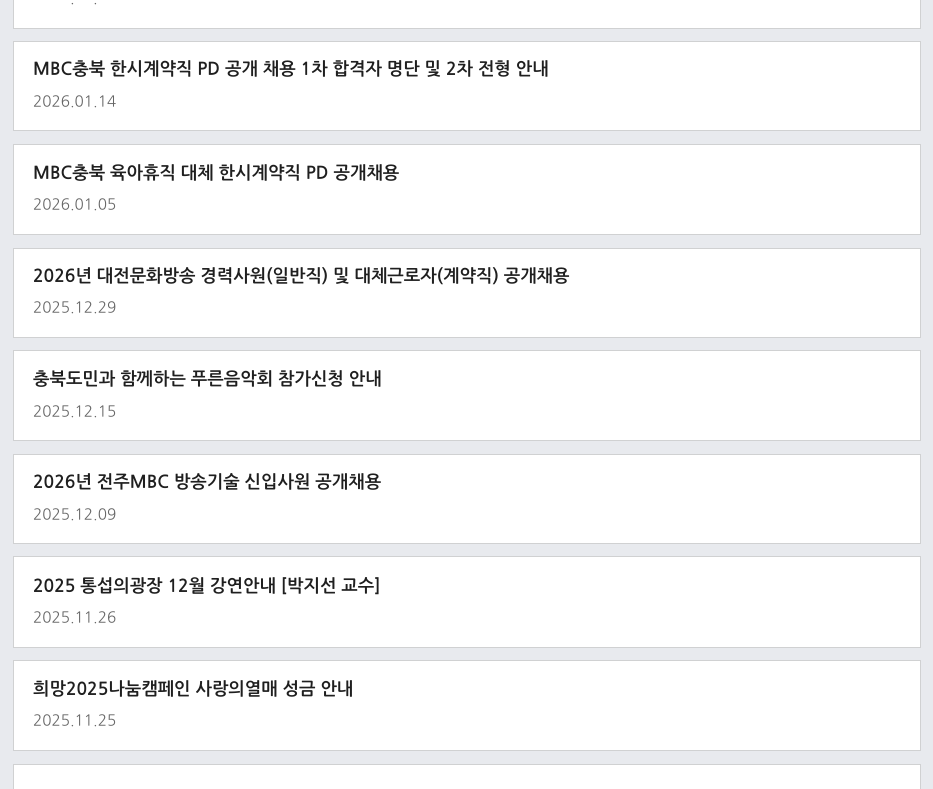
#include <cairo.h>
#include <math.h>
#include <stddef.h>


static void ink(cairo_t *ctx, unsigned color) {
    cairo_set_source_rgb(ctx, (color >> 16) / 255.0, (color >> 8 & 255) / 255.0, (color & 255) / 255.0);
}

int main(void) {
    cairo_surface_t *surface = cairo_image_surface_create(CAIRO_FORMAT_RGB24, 933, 789);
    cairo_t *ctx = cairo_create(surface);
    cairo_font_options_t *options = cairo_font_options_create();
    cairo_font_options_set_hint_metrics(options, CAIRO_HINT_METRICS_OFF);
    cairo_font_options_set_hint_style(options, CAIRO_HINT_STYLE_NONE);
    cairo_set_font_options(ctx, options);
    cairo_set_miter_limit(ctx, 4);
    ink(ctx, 0xE8EAEE);
    cairo_paint(ctx);
    ink(ctx, 0xFFFFFF);
    cairo_rectangle(ctx, 13.5, -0.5, 907, 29);
    cairo_fill_preserve(ctx);
    ink(ctx, 0xD0D1D2);
    cairo_set_line_width(ctx, 1);
    cairo_stroke(ctx);
    cairo_select_font_face(ctx, "NanumGothic", CAIRO_FONT_SLANT_NORMAL, CAIRO_FONT_WEIGHT_NORMAL);
    cairo_set_font_size(ctx, 15.25);
    ink(ctx, 0x666666);
    cairo_move_to(ctx, 70, 3);
    cairo_show_text(ctx, ".");
    cairo_move_to(ctx, 93, 3);
    cairo_show_text(ctx, ".");
    ink(ctx, 0xFFFFFF);
    cairo_rectangle(ctx, 13.5, 41.5, 907, 89);
    cairo_fill_preserve(ctx);
    ink(ctx, 0xD0D1D2);
    cairo_stroke(ctx);
    cairo_select_font_face(ctx, "NanumGothic", CAIRO_FONT_SLANT_NORMAL, CAIRO_FONT_WEIGHT_BOLD);
    cairo_set_font_size(ctx, 17.5);
    ink(ctx, 0x1F1F1F);
    cairo_move_to(ctx, 33, 74);
    cairo_show_text(ctx, "MBC충북 한시계약직 PD 공개 채용 1차 합격자 명단 및 2차 전형 안내");
    cairo_select_font_face(ctx, "NanumGothic", CAIRO_FONT_SLANT_NORMAL, CAIRO_FONT_WEIGHT_NORMAL);
    cairo_set_font_size(ctx, 15.25);
    ink(ctx, 0x666666);
    cairo_move_to(ctx, 33, 106);
    cairo_show_text(ctx, "2026.01.14");
    ink(ctx, 0xFFFFFF);
    cairo_rectangle(ctx, 13.5, 144.5, 907, 90);
    cairo_fill_preserve(ctx);
    ink(ctx, 0xD0D1D2);
    cairo_stroke(ctx);
    cairo_select_font_face(ctx, "NanumGothic", CAIRO_FONT_SLANT_NORMAL, CAIRO_FONT_WEIGHT_BOLD);
    cairo_set_font_size(ctx, 17.5);
    ink(ctx, 0x1F1F1F);
    cairo_move_to(ctx, 33, 178);
    cairo_show_text(ctx, "MBC충북 육아휴직 대체 한시계약직 PD 공개채용");
    cairo_select_font_face(ctx, "NanumGothic", CAIRO_FONT_SLANT_NORMAL, CAIRO_FONT_WEIGHT_NORMAL);
    cairo_set_font_size(ctx, 15.25);
    ink(ctx, 0x666666);
    cairo_move_to(ctx, 33, 209);
    cairo_show_text(ctx, "2026.01.05");
    ink(ctx, 0xFFFFFF);
    cairo_rectangle(ctx, 13.5, 248.5, 907, 89);
    cairo_fill_preserve(ctx);
    ink(ctx, 0xD0D1D2);
    cairo_stroke(ctx);
    cairo_select_font_face(ctx, "NanumGothic", CAIRO_FONT_SLANT_NORMAL, CAIRO_FONT_WEIGHT_BOLD);
    cairo_set_font_size(ctx, 17.5);
    ink(ctx, 0x1F1F1F);
    cairo_move_to(ctx, 33, 281);
    cairo_show_text(ctx, "2026년 대전문화방송 경력사원(일반직) 및 대체근로자(계약직) 공개채용");
    cairo_select_font_face(ctx, "NanumGothic", CAIRO_FONT_SLANT_NORMAL, CAIRO_FONT_WEIGHT_NORMAL);
    cairo_set_font_size(ctx, 15.25);
    ink(ctx, 0x666666);
    cairo_move_to(ctx, 33, 312);
    cairo_show_text(ctx, "2025.12.29");
    ink(ctx, 0xFFFFFF);
    cairo_rectangle(ctx, 13.5, 350.5, 907, 90);
    cairo_fill_preserve(ctx);
    ink(ctx, 0xD0D1D2);
    cairo_stroke(ctx);
    cairo_select_font_face(ctx, "NanumGothic", CAIRO_FONT_SLANT_NORMAL, CAIRO_FONT_WEIGHT_BOLD);
    cairo_set_font_size(ctx, 17.5);
    ink(ctx, 0x1F1F1F);
    cairo_move_to(ctx, 33, 384);
    cairo_show_text(ctx, "충북도민과 함께하는 푸른음악회 참가신청 안내");
    cairo_select_font_face(ctx, "NanumGothic", CAIRO_FONT_SLANT_NORMAL, CAIRO_FONT_WEIGHT_NORMAL);
    cairo_set_font_size(ctx, 15.25);
    ink(ctx, 0x666666);
    cairo_move_to(ctx, 33, 416);
    cairo_show_text(ctx, "2025.12.15");
    ink(ctx, 0xFFFFFF);
    cairo_rectangle(ctx, 13.5, 454.5, 907, 89);
    cairo_fill_preserve(ctx);
    ink(ctx, 0xD0D1D2);
    cairo_stroke(ctx);
    cairo_select_font_face(ctx, "NanumGothic", CAIRO_FONT_SLANT_NORMAL, CAIRO_FONT_WEIGHT_BOLD);
    cairo_set_font_size(ctx, 17.5);
    ink(ctx, 0x1F1F1F);
    cairo_move_to(ctx, 33, 487);
    cairo_show_text(ctx, "2026년 전주MBC 방송기술 신입사원 공개채용");
    cairo_select_font_face(ctx, "NanumGothic", CAIRO_FONT_SLANT_NORMAL, CAIRO_FONT_WEIGHT_NORMAL);
    cairo_set_font_size(ctx, 15.25);
    ink(ctx, 0x666666);
    cairo_move_to(ctx, 33, 519);
    cairo_show_text(ctx, "2025.12.09");
    ink(ctx, 0xFFFFFF);
    cairo_rectangle(ctx, 13.5, 556.5, 907, 91);
    cairo_fill_preserve(ctx);
    ink(ctx, 0xD0D1D2);
    cairo_stroke(ctx);
    cairo_select_font_face(ctx, "NanumGothic", CAIRO_FONT_SLANT_NORMAL, CAIRO_FONT_WEIGHT_BOLD);
    cairo_set_font_size(ctx, 17.5);
    ink(ctx, 0x1F1F1F);
    cairo_move_to(ctx, 33, 591);
    cairo_show_text(ctx, "2025 통섭의광장 12월 강연안내 [박지선 교수]");
    cairo_select_font_face(ctx, "NanumGothic", CAIRO_FONT_SLANT_NORMAL, CAIRO_FONT_WEIGHT_NORMAL);
    cairo_set_font_size(ctx, 15.25);
    ink(ctx, 0x666666);
    cairo_move_to(ctx, 33, 622);
    cairo_show_text(ctx, "2025.11.26");
    ink(ctx, 0xFFFFFF);
    cairo_rectangle(ctx, 13.5, 660.5, 907, 90);
    cairo_fill_preserve(ctx);
    ink(ctx, 0xD0D1D2);
    cairo_stroke(ctx);
    cairo_select_font_face(ctx, "NanumGothic", CAIRO_FONT_SLANT_NORMAL, CAIRO_FONT_WEIGHT_BOLD);
    cairo_set_font_size(ctx, 17.5);
    ink(ctx, 0x1F1F1F);
    cairo_move_to(ctx, 33, 694);
    cairo_show_text(ctx, "희망2025나눔캠페인 사랑의열매 성금 안내");
    cairo_select_font_face(ctx, "NanumGothic", CAIRO_FONT_SLANT_NORMAL, CAIRO_FONT_WEIGHT_NORMAL);
    cairo_set_font_size(ctx, 15.25);
    ink(ctx, 0x666666);
    cairo_move_to(ctx, 33, 725);
    cairo_show_text(ctx, "2025.11.25");
    ink(ctx, 0xFFFFFF);
    cairo_rectangle(ctx, 13.5, 764.5, 907, 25);
    cairo_fill_preserve(ctx);
    ink(ctx, 0xD0D1D2);
    cairo_stroke(ctx);
    cairo_surface_write_to_png(surface, "image.png");
    cairo_font_options_destroy(options);
    cairo_destroy(ctx);
    cairo_surface_destroy(surface);
    return 0;
}
